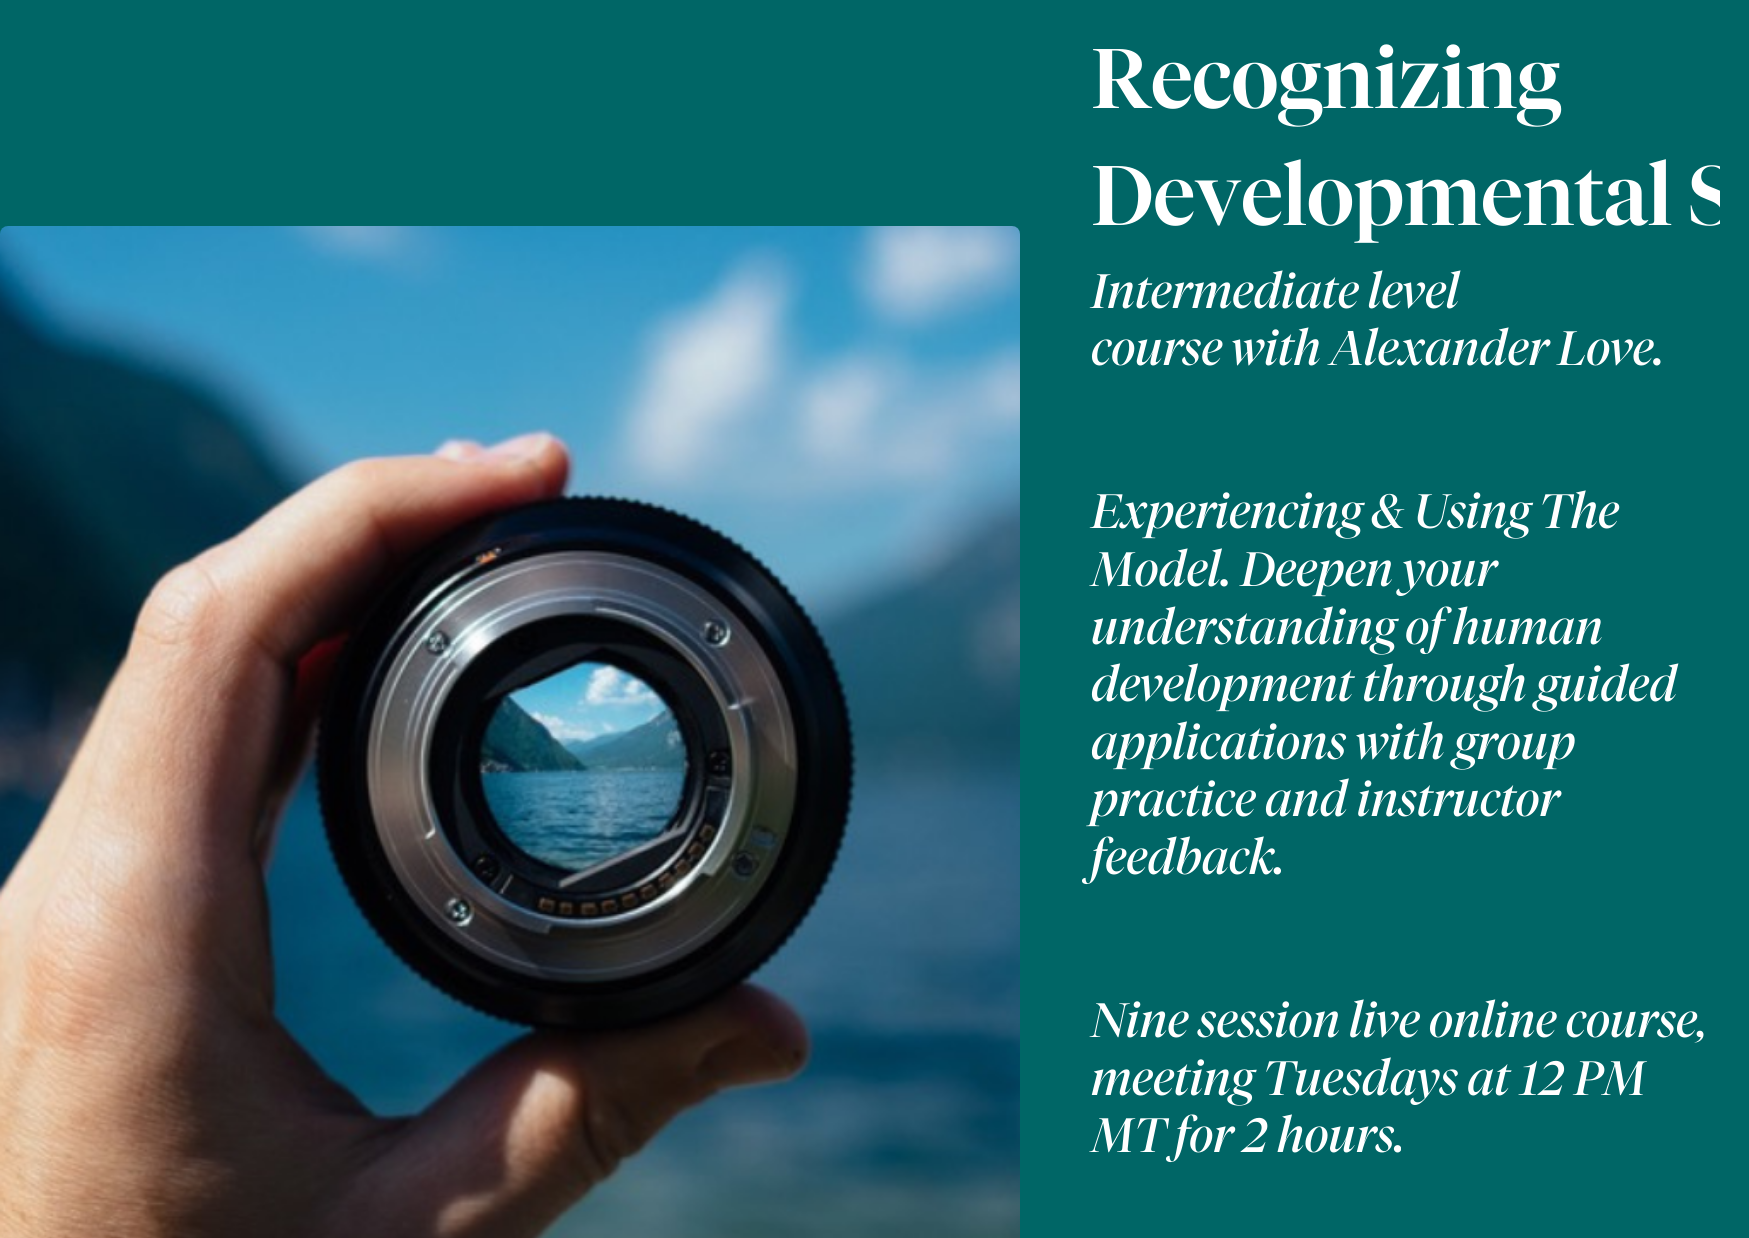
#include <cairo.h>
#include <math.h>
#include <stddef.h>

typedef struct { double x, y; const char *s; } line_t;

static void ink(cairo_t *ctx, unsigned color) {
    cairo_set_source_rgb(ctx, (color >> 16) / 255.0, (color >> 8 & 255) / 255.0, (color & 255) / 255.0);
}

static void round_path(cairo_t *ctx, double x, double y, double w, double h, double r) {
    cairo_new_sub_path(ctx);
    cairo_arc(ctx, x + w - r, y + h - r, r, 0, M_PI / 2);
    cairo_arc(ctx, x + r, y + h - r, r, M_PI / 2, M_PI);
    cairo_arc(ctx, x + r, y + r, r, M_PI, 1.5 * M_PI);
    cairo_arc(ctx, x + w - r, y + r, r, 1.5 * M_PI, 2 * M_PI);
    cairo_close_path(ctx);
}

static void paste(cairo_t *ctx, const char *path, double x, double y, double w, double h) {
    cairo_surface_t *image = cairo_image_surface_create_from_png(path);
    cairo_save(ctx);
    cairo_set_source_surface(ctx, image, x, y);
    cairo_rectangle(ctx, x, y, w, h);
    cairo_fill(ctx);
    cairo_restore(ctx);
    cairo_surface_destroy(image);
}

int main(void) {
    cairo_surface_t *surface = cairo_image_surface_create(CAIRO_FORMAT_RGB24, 1749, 1238);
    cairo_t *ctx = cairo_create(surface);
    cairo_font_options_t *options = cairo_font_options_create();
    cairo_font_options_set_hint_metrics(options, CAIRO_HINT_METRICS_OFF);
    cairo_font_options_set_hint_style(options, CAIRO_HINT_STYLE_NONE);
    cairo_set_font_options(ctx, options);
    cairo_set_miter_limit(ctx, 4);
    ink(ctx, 0x006666);
    cairo_paint(ctx);
    paste(ctx, "media/1.png", 0, 226, 1020, 1012);
    cairo_select_font_face(ctx, "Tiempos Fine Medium", CAIRO_FONT_SLANT_NORMAL, CAIRO_FONT_WEIGHT_NORMAL);
    cairo_set_font_size(ctx, 84);
    ink(ctx, 0xFFFFFF);
    cairo_move_to(ctx, 1091, 108);
    cairo_show_text(ctx, "Recognizing");
    cairo_save(ctx);
    round_path(ctx, 1050, 30, 670, 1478, 8);
    cairo_clip(ctx);
    cairo_move_to(ctx, 1091, 225);
    cairo_show_text(ctx, "Developmental S");
    cairo_restore(ctx);
    cairo_select_font_face(ctx, "Tiempos Fine", CAIRO_FONT_SLANT_ITALIC, CAIRO_FONT_WEIGHT_NORMAL);
    cairo_set_font_size(ctx, 48);
    {
        static const line_t items[] = {
            {1091, 308, "Intermediate level"},
            {1091, 365, "course with Alexander Love."},
            {1091, 528, "Experiencing & Using The"},
            {1091, 586, "Model. Deepen your"},
            {1091, 644, "understanding of human"},
            {1091, 701, "development through guided"},
            {1091, 759, "applications with group"},
            {1091, 816, "practice and instructor"},
            {1091, 874, "feedback."},
            {1091, 1037, "Nine session live online course,"},
            {1091, 1095, "meeting Tuesdays at 12 PM"},
            {1091, 1152, "MT for 2 hours."},
        };
        for (size_t i = 0; i < sizeof items / sizeof *items; i++) {
            cairo_move_to(ctx, items[i].x, items[i].y);
            cairo_show_text(ctx, items[i].s);
        }
    }
    cairo_surface_write_to_png(surface, "image.png");
    cairo_font_options_destroy(options);
    cairo_destroy(ctx);
    cairo_surface_destroy(surface);
    return 0;
}
